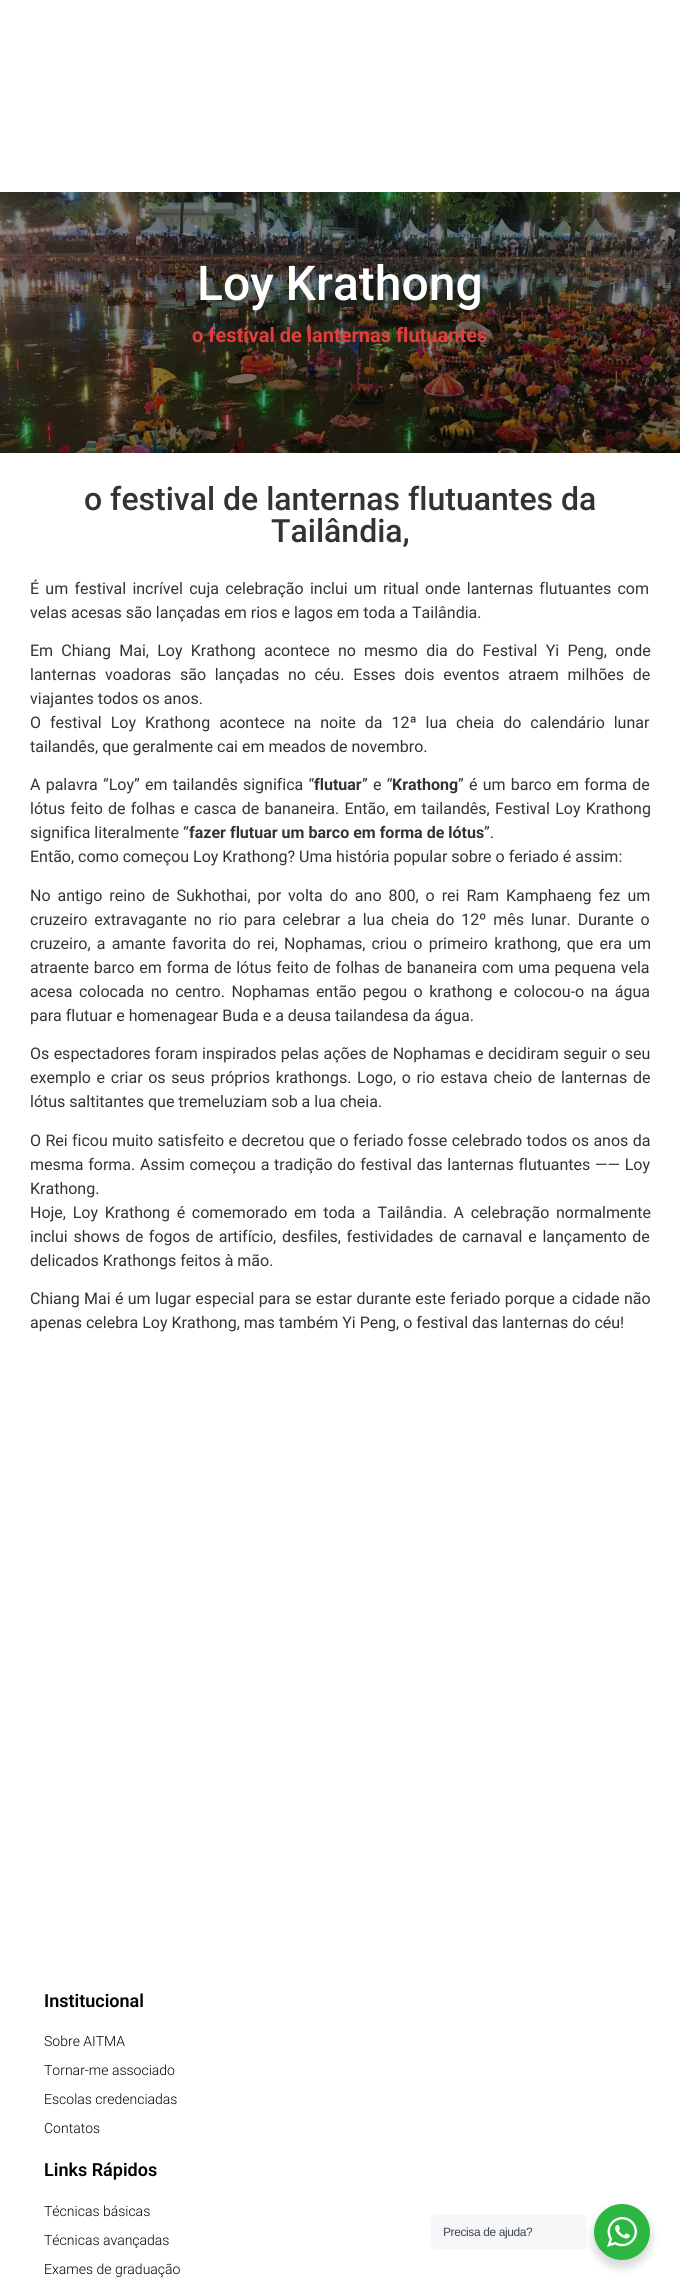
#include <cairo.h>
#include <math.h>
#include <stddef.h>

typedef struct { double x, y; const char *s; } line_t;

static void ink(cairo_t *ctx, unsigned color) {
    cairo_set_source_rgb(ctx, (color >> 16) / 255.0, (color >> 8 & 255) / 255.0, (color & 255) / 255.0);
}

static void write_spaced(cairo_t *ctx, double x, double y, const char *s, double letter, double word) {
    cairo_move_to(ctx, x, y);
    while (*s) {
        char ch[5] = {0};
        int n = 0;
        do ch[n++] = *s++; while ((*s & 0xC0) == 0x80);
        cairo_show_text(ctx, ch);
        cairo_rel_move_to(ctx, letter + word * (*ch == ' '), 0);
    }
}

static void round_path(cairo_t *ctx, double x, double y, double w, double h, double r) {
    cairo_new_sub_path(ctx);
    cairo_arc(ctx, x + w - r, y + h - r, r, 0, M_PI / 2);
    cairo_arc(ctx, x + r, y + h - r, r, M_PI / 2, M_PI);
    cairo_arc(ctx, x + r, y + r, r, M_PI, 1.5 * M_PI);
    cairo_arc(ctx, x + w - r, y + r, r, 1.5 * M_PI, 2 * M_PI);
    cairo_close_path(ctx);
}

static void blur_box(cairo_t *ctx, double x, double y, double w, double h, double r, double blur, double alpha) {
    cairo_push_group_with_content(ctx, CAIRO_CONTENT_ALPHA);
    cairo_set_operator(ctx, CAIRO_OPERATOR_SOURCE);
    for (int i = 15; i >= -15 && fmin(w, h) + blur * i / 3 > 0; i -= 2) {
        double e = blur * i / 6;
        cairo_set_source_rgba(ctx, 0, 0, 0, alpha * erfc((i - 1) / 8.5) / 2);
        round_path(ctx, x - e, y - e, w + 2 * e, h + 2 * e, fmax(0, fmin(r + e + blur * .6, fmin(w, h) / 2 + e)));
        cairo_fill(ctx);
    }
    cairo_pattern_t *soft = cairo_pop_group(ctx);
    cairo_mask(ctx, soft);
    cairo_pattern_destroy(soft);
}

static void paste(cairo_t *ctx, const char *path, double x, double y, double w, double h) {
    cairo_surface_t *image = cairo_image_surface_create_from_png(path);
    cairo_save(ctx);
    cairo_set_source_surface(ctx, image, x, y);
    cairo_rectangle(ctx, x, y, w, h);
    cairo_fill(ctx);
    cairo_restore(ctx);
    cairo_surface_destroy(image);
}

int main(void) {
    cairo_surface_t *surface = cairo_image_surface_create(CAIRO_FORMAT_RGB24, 680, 2290);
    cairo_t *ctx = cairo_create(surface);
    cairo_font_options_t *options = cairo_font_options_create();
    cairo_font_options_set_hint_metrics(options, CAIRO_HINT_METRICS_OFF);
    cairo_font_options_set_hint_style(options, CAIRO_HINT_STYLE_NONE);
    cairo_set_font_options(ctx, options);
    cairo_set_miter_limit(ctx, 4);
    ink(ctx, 0xFFFFFF);
    cairo_paint(ctx);
    paste(ctx, "media/1.png", 0, 192, 680, 261);
    cairo_select_font_face(ctx, "Roboto Medium", CAIRO_FONT_SLANT_NORMAL, CAIRO_FONT_WEIGHT_NORMAL);
    cairo_set_font_size(ctx, 48);
    ink(ctx, 0xFFFFFF);
    cairo_move_to(ctx, 197, 300);
    cairo_show_text(ctx, "Loy Krathong");
    cairo_select_font_face(ctx, "Roboto", CAIRO_FONT_SLANT_NORMAL, CAIRO_FONT_WEIGHT_BOLD);
    cairo_set_font_size(ctx, 20);
    ink(ctx, 0xE33D3D);
    cairo_move_to(ctx, 192, 342);
    cairo_show_text(ctx, "o festival de lanternas flutuantes");
    cairo_select_font_face(ctx, "Roboto Medium", CAIRO_FONT_SLANT_NORMAL, CAIRO_FONT_WEIGHT_NORMAL);
    cairo_set_font_size(ctx, 32);
    ink(ctx, 0x333333);
    cairo_move_to(ctx, 84, 510);
    cairo_show_text(ctx, "o festival de lanternas flutuantes da");
    cairo_move_to(ctx, 271, 542);
    cairo_show_text(ctx, "Tailândia,");
    cairo_select_font_face(ctx, "Roboto", CAIRO_FONT_SLANT_NORMAL, CAIRO_FONT_WEIGHT_NORMAL);
    cairo_set_font_size(ctx, 16);
    write_spaced(ctx, 30, 594, "É um festival incrível cuja celebração inclui um ritual onde lanternas flutuantes com", 0, 2.25);
    cairo_move_to(ctx, 30, 618);
    cairo_show_text(ctx, "velas acesas são lançadas em rios e lagos em toda a Tailândia.");
    write_spaced(ctx, 30, 656, "Em Chiang Mai, Loy Krathong acontece no mesmo dia do Festival Yi Peng, onde", 0, 4.25);
    write_spaced(ctx, 30, 680, "lanternas voadoras são lançadas no céu. Esses dois eventos atraem milhões de", 0, 4.75);
    cairo_move_to(ctx, 30, 704);
    cairo_show_text(ctx, "viajantes todos os anos.");
    write_spaced(ctx, 30, 728, "O festival Loy Krathong acontece na noite da 12ª lua cheia do calendário lunar", 0, 5);
    cairo_move_to(ctx, 30, 752);
    cairo_show_text(ctx, "tailandês, que geralmente cai em meados de novembro.");
    write_spaced(ctx, 30, 790, "A palavra “Loy” em tailandês significa “", 0, 1.25);
    cairo_select_font_face(ctx, "Roboto", CAIRO_FONT_SLANT_NORMAL, CAIRO_FONT_WEIGHT_BOLD);
    cairo_move_to(ctx, 314, 790);
    cairo_show_text(ctx, "flutuar");
    cairo_select_font_face(ctx, "Roboto", CAIRO_FONT_SLANT_NORMAL, CAIRO_FONT_WEIGHT_NORMAL);
    write_spaced(ctx, 362, 790, "” e “", 0, 1.25);
    cairo_select_font_face(ctx, "Roboto", CAIRO_FONT_SLANT_NORMAL, CAIRO_FONT_WEIGHT_BOLD);
    cairo_move_to(ctx, 392, 790);
    cairo_show_text(ctx, "Krathong");
    cairo_select_font_face(ctx, "Roboto", CAIRO_FONT_SLANT_NORMAL, CAIRO_FONT_WEIGHT_NORMAL);
    write_spaced(ctx, 458, 790, "” é um barco em forma de", 0, 1.25);
    write_spaced(ctx, 30, 814, "lótus feito de folhas e casca de bananeira. Então, em tailandês, Festival Loy Krathong", 0, 1.25);
    cairo_move_to(ctx, 30, 838);
    cairo_show_text(ctx, "significa literalmente “");
    cairo_select_font_face(ctx, "Roboto", CAIRO_FONT_SLANT_NORMAL, CAIRO_FONT_WEIGHT_BOLD);
    cairo_move_to(ctx, 189, 838);
    cairo_show_text(ctx, "fazer flutuar um barco em forma de lótus");
    cairo_select_font_face(ctx, "Roboto", CAIRO_FONT_SLANT_NORMAL, CAIRO_FONT_WEIGHT_NORMAL);
    cairo_move_to(ctx, 484, 838);
    cairo_show_text(ctx, "”.");
    cairo_move_to(ctx, 30, 862);
    cairo_show_text(ctx, "Então, como começou Loy Krathong? Uma história popular sobre o feriado é assim:");
    write_spaced(ctx, 30, 901, "No antigo reino de Sukhothai, por volta do ano 800, o rei Ram Kamphaeng fez um", 0, 3);
    write_spaced(ctx, 30, 925, "cruzeiro extravagante no rio para celebrar a lua cheia do 12º mês lunar. Durante o", 0, 2.9);
    write_spaced(ctx, 30, 949, "cruzeiro, a amante favorita do rei, Nophamas, criou o primeiro krathong, que era um", 0, 2.25);
    write_spaced(ctx, 30, 973, "atraente barco em forma de lótus feito de folhas de bananeira com uma pequena vela", 0, 0.75);
    write_spaced(ctx, 30, 997, "acesa colocada no centro. Nophamas então pegou o krathong e colocou-o na água", 0, 2.5);
    cairo_move_to(ctx, 30, 1021);
    cairo_show_text(ctx, "para flutuar e homenagear Buda e a deusa tailandesa da água.");
    write_spaced(ctx, 30, 1059, "Os espectadores foram inspirados pelas ações de Nophamas e decidiram seguir o seu", 0, 0.4);
    write_spaced(ctx, 30, 1083, "exemplo e criar os seus próprios krathongs. Logo, o rio estava cheio de lanternas de", 0, 1.7);
    cairo_move_to(ctx, 30, 1107);
    cairo_show_text(ctx, "lótus saltitantes que tremeluziam sob a lua cheia.");
    write_spaced(ctx, 30, 1146, "O Rei ficou muito satisfeito e decretou que o feriado fosse celebrado todos os anos da", 0, 0.4);
    write_spaced(ctx, 30, 1170, "mesma forma. Assim começou a tradição do festival das lanternas flutuantes —— Loy", 0, 0.75);
    cairo_move_to(ctx, 30, 1194);
    cairo_show_text(ctx, "Krathong.");
    write_spaced(ctx, 30, 1218, "Hoje, Loy Krathong é comemorado em toda a Tailândia. A celebração normalmente", 0, 2.75);
    write_spaced(ctx, 30, 1242, "inclui shows de fogos de artifício, desfiles, festividades de carnaval e lançamento de", 0, 1.75);
    cairo_move_to(ctx, 30, 1266);
    cairo_show_text(ctx, "delicados Krathongs feitos à mão.");
    write_spaced(ctx, 30, 1304, "Chiang Mai é um lugar especial para se estar durante este feriado porque a cidade não", 0, 0.4);
    cairo_move_to(ctx, 30, 1328);
    cairo_show_text(ctx, "apenas celebra Loy Krathong, mas também Yi Peng, o festival das lanternas do céu!");
    cairo_select_font_face(ctx, "Roboto SemiBold", CAIRO_FONT_SLANT_NORMAL, CAIRO_FONT_WEIGHT_NORMAL);
    cairo_set_font_size(ctx, 18);
    ink(ctx, 0x000000);
    cairo_move_to(ctx, 44, 2007);
    cairo_show_text(ctx, "Institucional");
    cairo_select_font_face(ctx, "Roboto Light", CAIRO_FONT_SLANT_NORMAL, CAIRO_FONT_WEIGHT_NORMAL);
    cairo_set_font_size(ctx, 14);
    {
        static const line_t items[] = {
            {44, 2046, "Sobre AITMA"},
            {44, 2075, "Tornar-me associado"},
            {44, 2104, "Escolas credenciadas"},
            {44, 2133, "Contatos"},
        };
        for (size_t i = 0; i < sizeof items / sizeof *items; i++) {
            cairo_move_to(ctx, items[i].x, items[i].y);
            cairo_show_text(ctx, items[i].s);
        }
    }
    cairo_select_font_face(ctx, "Roboto SemiBold", CAIRO_FONT_SLANT_NORMAL, CAIRO_FONT_WEIGHT_NORMAL);
    cairo_set_font_size(ctx, 18);
    cairo_move_to(ctx, 44, 2176);
    cairo_show_text(ctx, "Links Rápidos");
    cairo_select_font_face(ctx, "Roboto Light", CAIRO_FONT_SLANT_NORMAL, CAIRO_FONT_WEIGHT_NORMAL);
    cairo_set_font_size(ctx, 14);
    {
        static const line_t items[] = {
            {44, 2216, "Técnicas básicas"},
            {44, 2245, "Técnicas avançadas"},
            {44, 2274, "Exames de graduação"},
        };
        for (size_t i = 0; i < sizeof items / sizeof *items; i++) {
            cairo_move_to(ctx, items[i].x, items[i].y);
            cairo_show_text(ctx, items[i].s);
        }
    }
    ink(ctx, 0x000000);
    blur_box(ctx, 592, 2208, 60, 60, 30, 4, 0.14);
    ink(ctx, 0xF5F7F9);
    round_path(ctx, 431, 2215, 156, 34, 4);
    cairo_fill(ctx);
    cairo_select_font_face(ctx, "Liberation Sans", CAIRO_FONT_SLANT_NORMAL, CAIRO_FONT_WEIGHT_NORMAL);
    cairo_set_font_size(ctx, 12);
    ink(ctx, 0x43474E);
    write_spaced(ctx, 443, 2236, "Precisa de ajuda?", -0.4, 0);
    ink(ctx, 0x2DB742);
    cairo_new_path(ctx);
    cairo_arc(ctx, 622, 2232, 28, 0, 2 * M_PI);
    cairo_fill(ctx);
    paste(ctx, "media/2.png", 607, 2217, 30, 30);
    cairo_surface_write_to_png(surface, "image.png");
    cairo_font_options_destroy(options);
    cairo_destroy(ctx);
    cairo_surface_destroy(surface);
    return 0;
}
